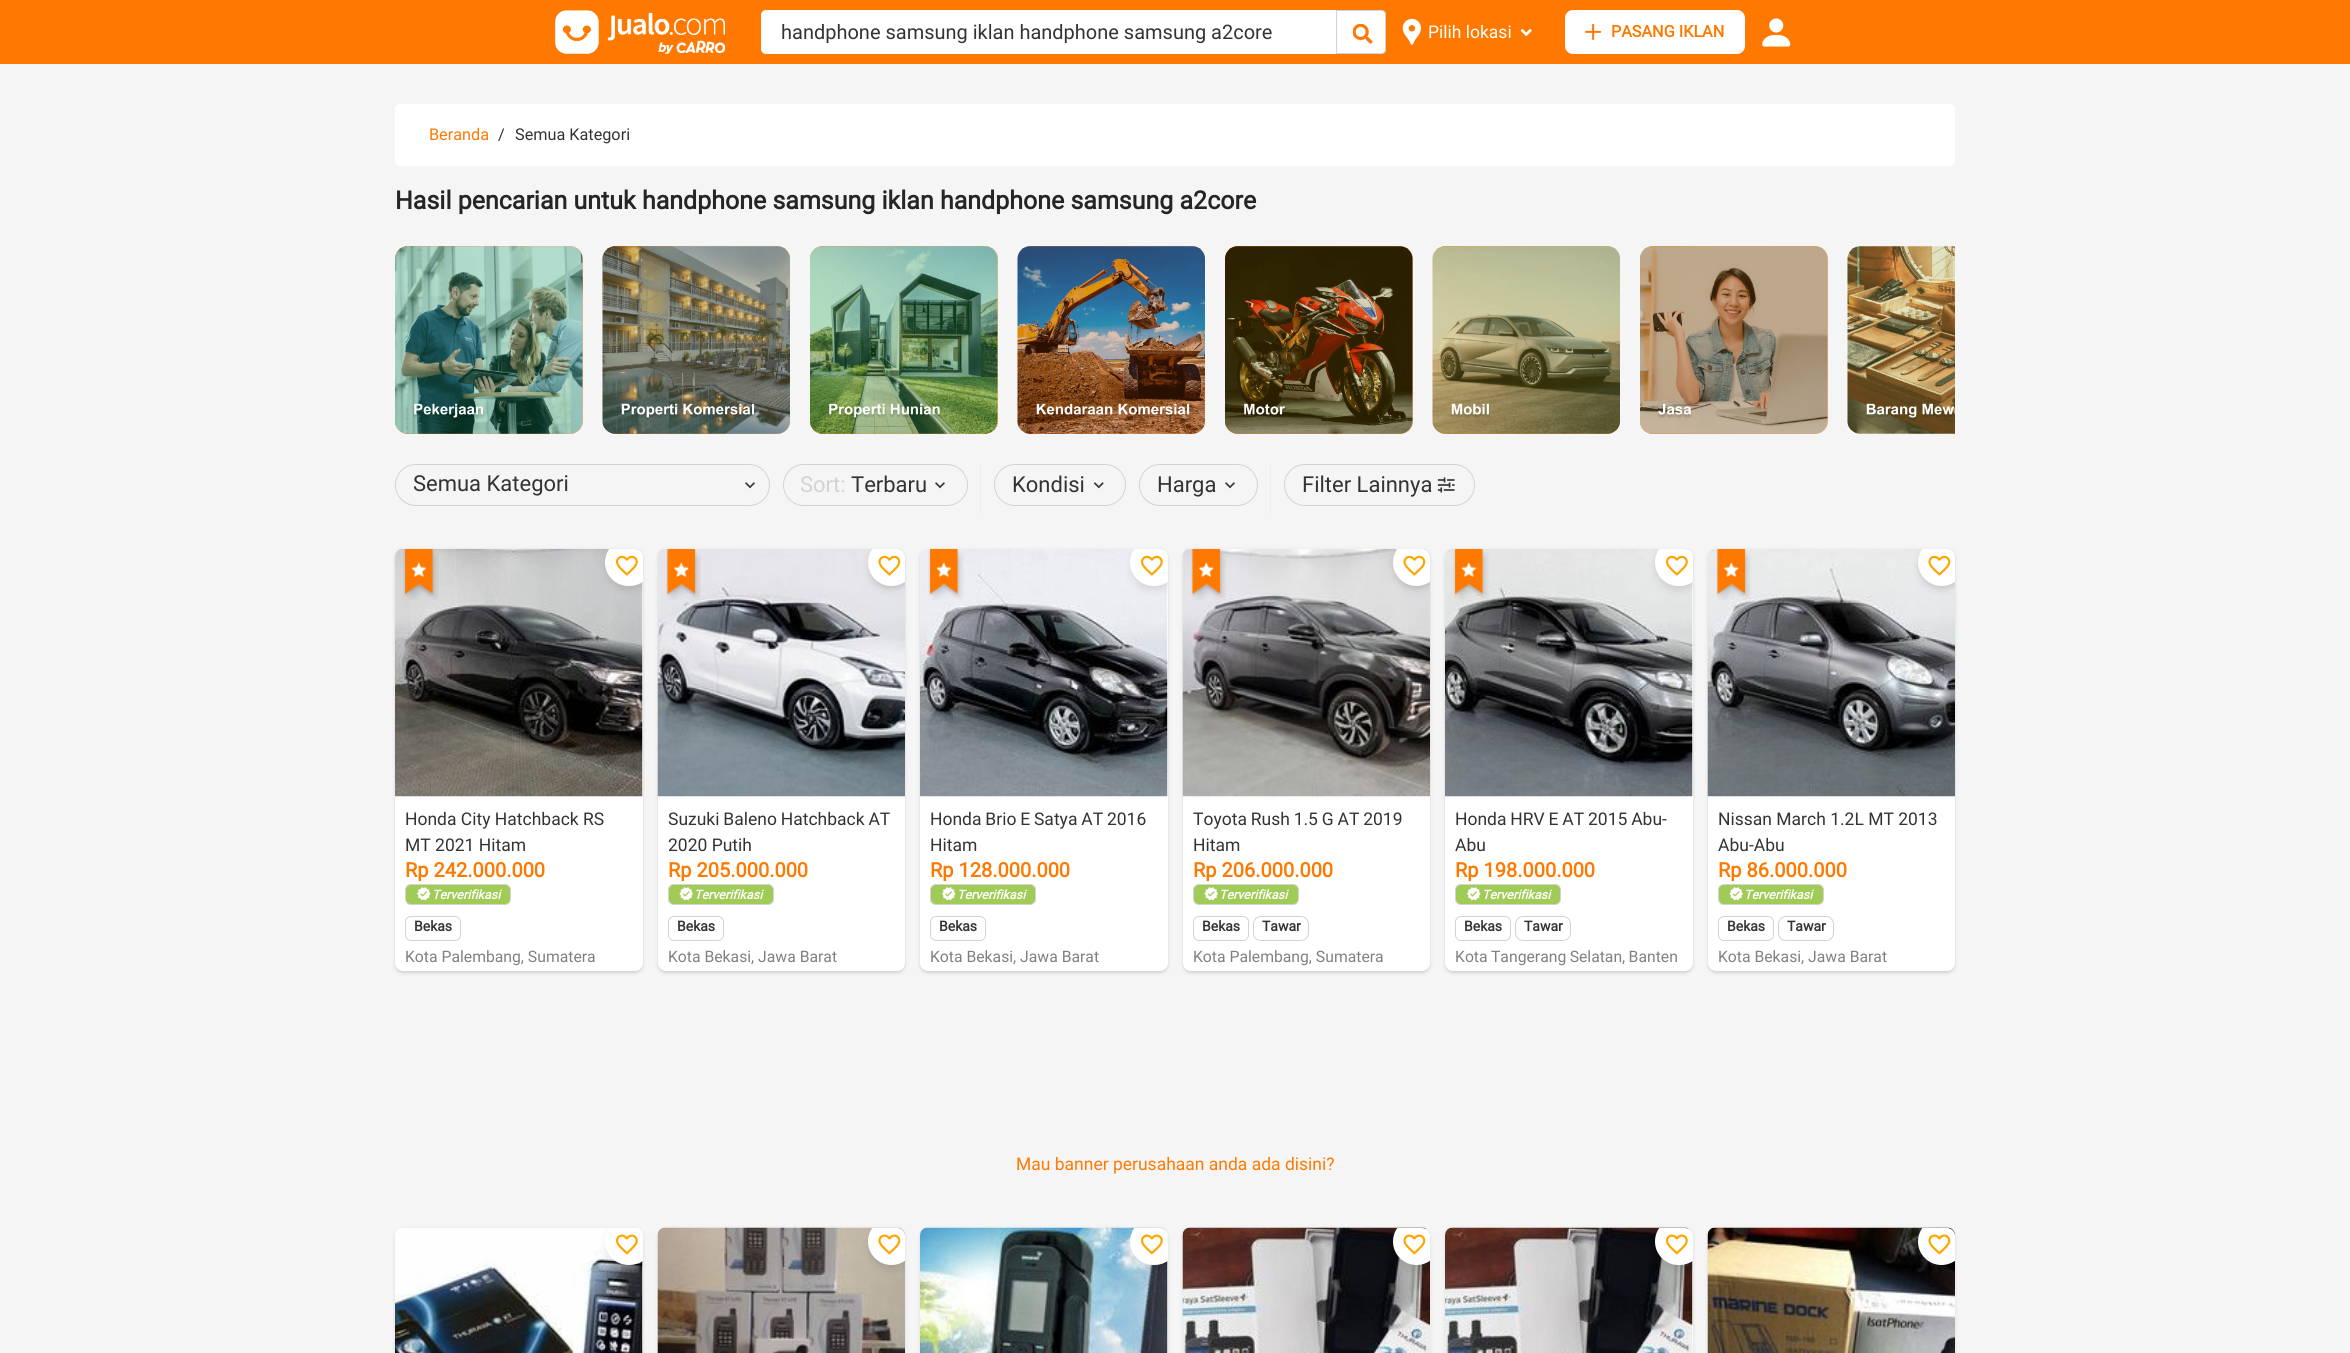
#include <cairo.h>
#include <math.h>
#include <stddef.h>


static void ink(cairo_t *ctx, unsigned color) {
    cairo_set_source_rgb(ctx, (color >> 16) / 255.0, (color >> 8 & 255) / 255.0, (color & 255) / 255.0);
}

static void write_spaced(cairo_t *ctx, double x, double y, const char *s, double letter, double word) {
    cairo_move_to(ctx, x, y);
    while (*s) {
        char ch[5] = {0};
        int n = 0;
        do ch[n++] = *s++; while ((*s & 0xC0) == 0x80);
        cairo_show_text(ctx, ch);
        cairo_rel_move_to(ctx, letter + word * (*ch == ' '), 0);
    }
}

static void round_path(cairo_t *ctx, double x, double y, double w, double h, double r) {
    cairo_new_sub_path(ctx);
    cairo_arc(ctx, x + w - r, y + h - r, r, 0, M_PI / 2);
    cairo_arc(ctx, x + r, y + h - r, r, M_PI / 2, M_PI);
    cairo_arc(ctx, x + r, y + r, r, M_PI, 1.5 * M_PI);
    cairo_arc(ctx, x + w - r, y + r, r, 1.5 * M_PI, 2 * M_PI);
    cairo_close_path(ctx);
}

static void blur_box(cairo_t *ctx, double x, double y, double w, double h, double r, double blur, double alpha) {
    cairo_push_group_with_content(ctx, CAIRO_CONTENT_ALPHA);
    cairo_set_operator(ctx, CAIRO_OPERATOR_SOURCE);
    for (int i = 15; i >= -15 && fmin(w, h) + blur * i / 3 > 0; i -= 2) {
        double e = blur * i / 6;
        cairo_set_source_rgba(ctx, 0, 0, 0, alpha * erfc((i - 1) / 8.5) / 2);
        round_path(ctx, x - e, y - e, w + 2 * e, h + 2 * e, fmax(0, fmin(r + e + blur * .6, fmin(w, h) / 2 + e)));
        cairo_fill(ctx);
    }
    cairo_pattern_t *soft = cairo_pop_group(ctx);
    cairo_mask(ctx, soft);
    cairo_pattern_destroy(soft);
}

static void paste(cairo_t *ctx, const char *path, double x, double y, double w, double h) {
    cairo_surface_t *image = cairo_image_surface_create_from_png(path);
    cairo_save(ctx);
    cairo_set_source_surface(ctx, image, x, y);
    cairo_rectangle(ctx, x, y, w, h);
    cairo_fill(ctx);
    cairo_restore(ctx);
    cairo_surface_destroy(image);
}

int main(void) {
    cairo_surface_t *surface = cairo_image_surface_create(CAIRO_FORMAT_RGB24, 2350, 1353);
    cairo_t *ctx = cairo_create(surface);
    cairo_font_options_t *options = cairo_font_options_create();
    cairo_font_options_set_hint_metrics(options, CAIRO_HINT_METRICS_OFF);
    cairo_font_options_set_hint_style(options, CAIRO_HINT_STYLE_NONE);
    cairo_set_font_options(ctx, options);
    cairo_set_miter_limit(ctx, 4);
    cairo_pattern_t *gradient;
    ink(ctx, 0xFF7900);
    cairo_paint(ctx);
    paste(ctx, "media/1.png", 555, 10, 170, 44);
    ink(ctx, 0xFFFFFF);
    round_path(ctx, 761, 10, 625, 44, 5);
    cairo_fill(ctx);
    cairo_select_font_face(ctx, "Roboto", CAIRO_FONT_SLANT_NORMAL, CAIRO_FONT_WEIGHT_NORMAL);
    cairo_set_font_size(ctx, 20);
    ink(ctx, 0x333333);
    cairo_move_to(ctx, 781, 39);
    cairo_show_text(ctx, "handphone samsung iklan handphone samsung a2core");
    cairo_new_path(ctx);
    cairo_move_to(ctx, 1336.5, 10.5);
    cairo_line_to(ctx, 1381, 10.5);
    cairo_curve_to(ctx, 1383.5, 10.5, 1385.5, 12.5, 1385.5, 15);
    cairo_line_to(ctx, 1385.5, 49);
    cairo_curve_to(ctx, 1385.5, 51.5, 1383.5, 53.5, 1381, 53.5);
    cairo_line_to(ctx, 1336.5, 53.5);
    cairo_close_path(ctx);
    ink(ctx, 0xCBD5E0);
    cairo_set_line_width(ctx, 1);
    cairo_stroke(ctx);
    paste(ctx, "media/2.png", 1353, 24, 20, 20);
    paste(ctx, "media/3.png", 1402, 18, 19, 27);
    cairo_set_font_size(ctx, 17.5);
    ink(ctx, 0xFFFFFF);
    cairo_move_to(ctx, 1428, 38);
    cairo_show_text(ctx, "Pilih lokasi");
    paste(ctx, "media/4.png", 1520, 29, 12, 7);
    round_path(ctx, 1565, 10, 180, 44, 8);
    cairo_fill(ctx);
    paste(ctx, "media/5.png", 1585, 24, 16, 16);
    cairo_select_font_face(ctx, "Roboto", CAIRO_FONT_SLANT_NORMAL, CAIRO_FONT_WEIGHT_BOLD);
    cairo_set_font_size(ctx, 16.25);
    ink(ctx, 0xFF7900);
    cairo_move_to(ctx, 1611, 37);
    cairo_show_text(ctx, "PASANG IKLAN");
    paste(ctx, "media/6.png", 1762, 18, 29, 29);
    ink(ctx, 0xF6F5F5);
    cairo_rectangle(ctx, 0, 64, 2350, 1289);
    cairo_fill(ctx);
    ink(ctx, 0xFFFFFF);
    round_path(ctx, 395, 104, 1560, 62, 5);
    cairo_fill(ctx);
    cairo_select_font_face(ctx, "Roboto", CAIRO_FONT_SLANT_NORMAL, CAIRO_FONT_WEIGHT_NORMAL);
    ink(ctx, 0xFF7900);
    cairo_move_to(ctx, 429, 140);
    cairo_show_text(ctx, "Beranda");
    ink(ctx, 0x333333);
    cairo_move_to(ctx, 498, 140);
    cairo_show_text(ctx, "/");
    cairo_move_to(ctx, 515, 140);
    cairo_show_text(ctx, "Semua Kategori");
    cairo_select_font_face(ctx, "Roboto", CAIRO_FONT_SLANT_NORMAL, CAIRO_FONT_WEIGHT_BOLD);
    cairo_set_font_size(ctx, 25);
    ink(ctx, 0x252525);
    cairo_move_to(ctx, 395, 209);
    cairo_show_text(ctx, "Hasil pencarian untuk handphone samsung iklan handphone samsung a2core");
    gradient = cairo_pattern_create_linear(395, 340, 583, 340);
    cairo_pattern_add_color_stop_rgba(gradient, 0, 0.4, 0.188, 0, 1);
    cairo_pattern_add_color_stop_rgba(gradient, 0, 1, 0.475, 0, 1);
    cairo_pattern_add_color_stop_rgba(gradient, 0.61, 1, 0.631, 0.302, 1);
    cairo_pattern_add_color_stop_rgba(gradient, 1, 1, 0.686, 0.4, 1);
    cairo_set_source(ctx, gradient);
    cairo_pattern_destroy(gradient);
    round_path(ctx, 395, 246, 188, 188, 13);
    cairo_fill(ctx);
    paste(ctx, "media/7.png", 395, 246, 188, 188);
    gradient = cairo_pattern_create_linear(603, 340, 790, 340);
    cairo_pattern_add_color_stop_rgba(gradient, 0, 0.4, 0.188, 0, 1);
    cairo_pattern_add_color_stop_rgba(gradient, 0, 1, 0.475, 0, 1);
    cairo_pattern_add_color_stop_rgba(gradient, 0.61, 1, 0.631, 0.302, 1);
    cairo_pattern_add_color_stop_rgba(gradient, 1, 1, 0.686, 0.4, 1);
    cairo_set_source(ctx, gradient);
    cairo_pattern_destroy(gradient);
    round_path(ctx, 603, 246, 187, 188, 13);
    cairo_fill(ctx);
    paste(ctx, "media/8.png", 602, 246, 188, 188);
    gradient = cairo_pattern_create_linear(810, 340, 998, 340);
    cairo_pattern_add_color_stop_rgba(gradient, 0, 0.4, 0.188, 0, 1);
    cairo_pattern_add_color_stop_rgba(gradient, 0, 1, 0.475, 0, 1);
    cairo_pattern_add_color_stop_rgba(gradient, 0.61, 1, 0.631, 0.302, 1);
    cairo_pattern_add_color_stop_rgba(gradient, 1, 1, 0.686, 0.4, 1);
    cairo_set_source(ctx, gradient);
    cairo_pattern_destroy(gradient);
    round_path(ctx, 810, 246, 188, 188, 13);
    cairo_fill(ctx);
    paste(ctx, "media/9.png", 810, 246, 188, 188);
    gradient = cairo_pattern_create_linear(1018, 340, 1205, 340);
    cairo_pattern_add_color_stop_rgba(gradient, 0, 0.4, 0.188, 0, 1);
    cairo_pattern_add_color_stop_rgba(gradient, 0, 1, 0.475, 0, 1);
    cairo_pattern_add_color_stop_rgba(gradient, 0.61, 1, 0.631, 0.302, 1);
    cairo_pattern_add_color_stop_rgba(gradient, 1, 1, 0.686, 0.4, 1);
    cairo_set_source(ctx, gradient);
    cairo_pattern_destroy(gradient);
    round_path(ctx, 1018, 246, 187, 188, 13);
    cairo_fill(ctx);
    paste(ctx, "media/10.png", 1017, 246, 188, 188);
    gradient = cairo_pattern_create_linear(1225, 340, 1413, 340);
    cairo_pattern_add_color_stop_rgba(gradient, 0, 0.4, 0.188, 0, 1);
    cairo_pattern_add_color_stop_rgba(gradient, 0, 1, 0.475, 0, 1);
    cairo_pattern_add_color_stop_rgba(gradient, 0.61, 1, 0.631, 0.302, 1);
    cairo_pattern_add_color_stop_rgba(gradient, 1, 1, 0.686, 0.4, 1);
    cairo_set_source(ctx, gradient);
    cairo_pattern_destroy(gradient);
    round_path(ctx, 1225, 246, 188, 188, 13);
    cairo_fill(ctx);
    paste(ctx, "media/11.png", 1225, 246, 188, 188);
    gradient = cairo_pattern_create_linear(1433, 340, 1620, 340);
    cairo_pattern_add_color_stop_rgba(gradient, 0, 0.4, 0.188, 0, 1);
    cairo_pattern_add_color_stop_rgba(gradient, 0, 1, 0.475, 0, 1);
    cairo_pattern_add_color_stop_rgba(gradient, 0.61, 1, 0.631, 0.302, 1);
    cairo_pattern_add_color_stop_rgba(gradient, 1, 1, 0.686, 0.4, 1);
    cairo_set_source(ctx, gradient);
    cairo_pattern_destroy(gradient);
    round_path(ctx, 1433, 246, 187, 188, 13);
    cairo_fill(ctx);
    paste(ctx, "media/12.png", 1432, 246, 188, 188);
    gradient = cairo_pattern_create_linear(1640, 340, 1828, 340);
    cairo_pattern_add_color_stop_rgba(gradient, 0, 0.4, 0.188, 0, 1);
    cairo_pattern_add_color_stop_rgba(gradient, 0, 1, 0.475, 0, 1);
    cairo_pattern_add_color_stop_rgba(gradient, 0.61, 1, 0.631, 0.302, 1);
    cairo_pattern_add_color_stop_rgba(gradient, 1, 1, 0.686, 0.4, 1);
    cairo_set_source(ctx, gradient);
    cairo_pattern_destroy(gradient);
    round_path(ctx, 1640, 246, 188, 188, 13);
    cairo_fill(ctx);
    paste(ctx, "media/13.png", 1640, 246, 188, 188);
    paste(ctx, "media/14.png", 1847, 246, 108, 188);
    round_path(ctx, 395.5, 464.5, 374, 41, 20.5);
    ink(ctx, 0xD3D3D3);
    cairo_stroke(ctx);
    cairo_select_font_face(ctx, "Roboto", CAIRO_FONT_SLANT_NORMAL, CAIRO_FONT_WEIGHT_NORMAL);
    cairo_set_font_size(ctx, 22);
    ink(ctx, 0x333333);
    cairo_move_to(ctx, 413, 491);
    cairo_show_text(ctx, "Semua Kategori");
    paste(ctx, "media/15.png", 745, 482, 10, 7);
    round_path(ctx, 783.5, 464.5, 184, 41, 20.5);
    ink(ctx, 0xD3D3D3);
    cairo_stroke(ctx);
    cairo_move_to(ctx, 800, 492);
    cairo_show_text(ctx, "Sort:");
    ink(ctx, 0x333333);
    cairo_move_to(ctx, 851, 492);
    cairo_show_text(ctx, "Terbaru");
    paste(ctx, "media/15.png", 935, 482, 10, 7);
    ink(ctx, 0xEAEDF2);
    cairo_rectangle(ctx, 980, 464, 1, 50);
    cairo_fill(ctx);
    round_path(ctx, 994.5, 464.5, 131, 41, 20.5);
    ink(ctx, 0xD3D3D3);
    cairo_stroke(ctx);
    ink(ctx, 0x333333);
    cairo_move_to(ctx, 1012, 492);
    cairo_show_text(ctx, "Kondisi");
    paste(ctx, "media/16.png", 1093, 482, 11, 7);
    round_path(ctx, 1139.5, 464.5, 118, 41, 20.5);
    ink(ctx, 0xD3D3D3);
    cairo_stroke(ctx);
    ink(ctx, 0x333333);
    cairo_move_to(ctx, 1157, 492);
    cairo_show_text(ctx, "Harga");
    paste(ctx, "media/15.png", 1225, 482, 10, 7);
    ink(ctx, 0xEAEDF2);
    cairo_rectangle(ctx, 1270, 464, 1, 50);
    cairo_fill(ctx);
    round_path(ctx, 1284.5, 464.5, 190, 41, 20.5);
    ink(ctx, 0xD3D3D3);
    cairo_stroke(ctx);
    ink(ctx, 0x333333);
    cairo_move_to(ctx, 1302, 492);
    cairo_show_text(ctx, "Filter Lainnya");
    paste(ctx, "media/17.png", 1437, 477, 18, 16);
    ink(ctx, 0x000000);
    blur_box(ctx, 395, 550, 248, 423, 8, 1, 0.06);
    blur_box(ctx, 395, 550, 248, 423, 8, 2, 0.1);
    ink(ctx, 0xFFFFFF);
    round_path(ctx, 395, 549, 248, 422, 8);
    cairo_fill(ctx);
    paste(ctx, "media/19.png", 395, 548, 248, 249);
    cairo_save(ctx);
    round_path(ctx, 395, 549, 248, 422, 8);
    cairo_clip(ctx);
    ink(ctx, 0x000000);
    blur_box(ctx, 606, 545, 45, 45, 22.5, 4, 0.1);
    cairo_restore(ctx);
    cairo_save(ctx);
    round_path(ctx, 395, 549, 248, 422, 8);
    cairo_clip(ctx);
    round_path(ctx, 605, 539, 48, 47, 23.5);
    cairo_fill(ctx);
    cairo_restore(ctx);
    paste(ctx, "media/18.png", 615, 555, 23, 21);
    paste(ctx, "media/20.png", 403, 548, 36, 52);
    cairo_set_font_size(ctx, 17.5);
    ink(ctx, 0x333333);
    cairo_move_to(ctx, 405, 825);
    cairo_show_text(ctx, "Honda City Hatchback RS");
    cairo_move_to(ctx, 405, 851);
    cairo_show_text(ctx, "MT 2021 Hitam");
    cairo_select_font_face(ctx, "Roboto", CAIRO_FONT_SLANT_NORMAL, CAIRO_FONT_WEIGHT_BOLD);
    cairo_set_font_size(ctx, 20);
    ink(ctx, 0xFF7900);
    cairo_move_to(ctx, 405, 877);
    cairo_show_text(ctx, "Rp 242.000.000");
    ink(ctx, 0xA0CB57);
    round_path(ctx, 405.5, 884.5, 105, 20, 5.5);
    cairo_fill_preserve(ctx);
    ink(ctx, 0xD3D3D3);
    cairo_stroke(ctx);
    paste(ctx, "media/21.png", 417, 887, 14, 14);
    cairo_select_font_face(ctx, "Roboto", CAIRO_FONT_SLANT_ITALIC, CAIRO_FONT_WEIGHT_BOLD);
    cairo_set_font_size(ctx, 12.5);
    ink(ctx, 0xFFFFFF);
    cairo_move_to(ctx, 432, 899);
    cairo_show_text(ctx, "Terverifikasi");
    round_path(ctx, 405.5, 916.5, 55, 24, 5.5);
    ink(ctx, 0xD3D3D3);
    cairo_stroke(ctx);
    cairo_select_font_face(ctx, "Roboto", CAIRO_FONT_SLANT_NORMAL, CAIRO_FONT_WEIGHT_BOLD);
    cairo_set_font_size(ctx, 14);
    ink(ctx, 0x333333);
    cairo_move_to(ctx, 414, 931);
    cairo_show_text(ctx, "Bekas");
    cairo_select_font_face(ctx, "Roboto", CAIRO_FONT_SLANT_NORMAL, CAIRO_FONT_WEIGHT_NORMAL);
    cairo_set_font_size(ctx, 15.75);
    ink(ctx, 0x808080);
    cairo_move_to(ctx, 405, 962);
    cairo_show_text(ctx, "Kota Palembang, Sumatera");
    ink(ctx, 0x000000);
    blur_box(ctx, 658, 550, 247, 423, 8, 1, 0.06);
    blur_box(ctx, 658, 550, 247, 423, 8, 2, 0.1);
    ink(ctx, 0xFFFFFF);
    round_path(ctx, 658, 549, 247, 422, 8);
    cairo_fill(ctx);
    paste(ctx, "media/24.png", 657, 549, 248, 248);
    cairo_save(ctx);
    round_path(ctx, 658, 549, 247, 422, 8);
    cairo_clip(ctx);
    ink(ctx, 0x000000);
    blur_box(ctx, 869, 543, 45, 45, 22.5, 2.5, 0.06);
    blur_box(ctx, 869, 545, 45, 45, 22.5, 4, 0.1);
    cairo_restore(ctx);
    cairo_save(ctx);
    round_path(ctx, 658, 549, 247, 422, 8);
    cairo_clip(ctx);
    cairo_arc(ctx, 891.5, 562.5, 23.5, 0, 2 * M_PI);
    cairo_fill(ctx);
    cairo_restore(ctx);
    paste(ctx, "media/22.png", 878, 555, 23, 21);
    paste(ctx, "media/23.png", 666, 548, 35, 52);
    cairo_set_font_size(ctx, 17.5);
    ink(ctx, 0x333333);
    write_spaced(ctx, 668, 825, "Suzuki Baleno Hatchback AT", 0, -0.5);
    cairo_move_to(ctx, 668, 851);
    cairo_show_text(ctx, "2020 Putih");
    cairo_select_font_face(ctx, "Roboto", CAIRO_FONT_SLANT_NORMAL, CAIRO_FONT_WEIGHT_BOLD);
    cairo_set_font_size(ctx, 20);
    ink(ctx, 0xFF7900);
    cairo_move_to(ctx, 668, 877);
    cairo_show_text(ctx, "Rp 205.000.000");
    ink(ctx, 0xA0CB57);
    round_path(ctx, 668.5, 884.5, 105, 20, 5.5);
    cairo_fill_preserve(ctx);
    ink(ctx, 0xD3D3D3);
    cairo_stroke(ctx);
    paste(ctx, "media/25.png", 679, 887, 14, 14);
    cairo_select_font_face(ctx, "Roboto", CAIRO_FONT_SLANT_ITALIC, CAIRO_FONT_WEIGHT_BOLD);
    cairo_set_font_size(ctx, 12.5);
    ink(ctx, 0xFFFFFF);
    cairo_move_to(ctx, 694, 899);
    cairo_show_text(ctx, "Terverifikasi");
    round_path(ctx, 668.5, 916.5, 55, 24, 5.5);
    ink(ctx, 0xD3D3D3);
    cairo_stroke(ctx);
    cairo_select_font_face(ctx, "Roboto", CAIRO_FONT_SLANT_NORMAL, CAIRO_FONT_WEIGHT_BOLD);
    cairo_set_font_size(ctx, 14);
    ink(ctx, 0x333333);
    cairo_move_to(ctx, 677, 931);
    cairo_show_text(ctx, "Bekas");
    cairo_select_font_face(ctx, "Roboto", CAIRO_FONT_SLANT_NORMAL, CAIRO_FONT_WEIGHT_NORMAL);
    cairo_set_font_size(ctx, 15.75);
    ink(ctx, 0x808080);
    cairo_move_to(ctx, 668, 962);
    cairo_show_text(ctx, "Kota Bekasi, Jawa Barat");
    ink(ctx, 0x000000);
    blur_box(ctx, 920, 550, 248, 423, 8, 1, 0.06);
    blur_box(ctx, 920, 550, 248, 423, 8, 2, 0.1);
    ink(ctx, 0xFFFFFF);
    round_path(ctx, 920, 549, 248, 422, 8);
    cairo_fill(ctx);
    paste(ctx, "media/27.png", 920, 549, 248, 248);
    cairo_save(ctx);
    round_path(ctx, 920, 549, 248, 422, 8);
    cairo_clip(ctx);
    ink(ctx, 0x000000);
    blur_box(ctx, 1131, 545, 45, 45, 22.5, 4, 0.1);
    cairo_restore(ctx);
    cairo_save(ctx);
    round_path(ctx, 920, 549, 248, 422, 8);
    cairo_clip(ctx);
    round_path(ctx, 1130, 539, 48, 47, 23.5);
    cairo_fill(ctx);
    cairo_restore(ctx);
    paste(ctx, "media/18.png", 1140, 555, 23, 21);
    paste(ctx, "media/26.png", 928, 548, 36, 52);
    cairo_set_font_size(ctx, 17.5);
    ink(ctx, 0x333333);
    write_spaced(ctx, 930, 825, "Honda Brio E Satya AT 2016", 0, -0.5);
    cairo_move_to(ctx, 930, 851);
    cairo_show_text(ctx, "Hitam");
    cairo_select_font_face(ctx, "Roboto", CAIRO_FONT_SLANT_NORMAL, CAIRO_FONT_WEIGHT_BOLD);
    cairo_set_font_size(ctx, 20);
    ink(ctx, 0xFF7900);
    cairo_move_to(ctx, 930, 877);
    cairo_show_text(ctx, "Rp 128.000.000");
    ink(ctx, 0xA0CB57);
    round_path(ctx, 930.5, 884.5, 105, 20, 5.5);
    cairo_fill_preserve(ctx);
    ink(ctx, 0xD3D3D3);
    cairo_stroke(ctx);
    paste(ctx, "media/21.png", 942, 887, 14, 14);
    cairo_select_font_face(ctx, "Roboto", CAIRO_FONT_SLANT_ITALIC, CAIRO_FONT_WEIGHT_BOLD);
    cairo_set_font_size(ctx, 12.5);
    ink(ctx, 0xFFFFFF);
    cairo_move_to(ctx, 957, 899);
    cairo_show_text(ctx, "Terverifikasi");
    round_path(ctx, 930.5, 916.5, 55, 24, 5.5);
    ink(ctx, 0xD3D3D3);
    cairo_stroke(ctx);
    cairo_select_font_face(ctx, "Roboto", CAIRO_FONT_SLANT_NORMAL, CAIRO_FONT_WEIGHT_BOLD);
    cairo_set_font_size(ctx, 14);
    ink(ctx, 0x333333);
    cairo_move_to(ctx, 939, 931);
    cairo_show_text(ctx, "Bekas");
    cairo_select_font_face(ctx, "Roboto", CAIRO_FONT_SLANT_NORMAL, CAIRO_FONT_WEIGHT_NORMAL);
    cairo_set_font_size(ctx, 15.75);
    ink(ctx, 0x808080);
    cairo_move_to(ctx, 930, 962);
    cairo_show_text(ctx, "Kota Bekasi, Jawa Barat");
    ink(ctx, 0x000000);
    blur_box(ctx, 1183, 550, 247, 423, 8, 1, 0.06);
    blur_box(ctx, 1183, 550, 247, 423, 8, 2, 0.1);
    ink(ctx, 0xFFFFFF);
    round_path(ctx, 1183, 549, 247, 422, 8);
    cairo_fill(ctx);
    paste(ctx, "media/29.png", 1182, 549, 248, 248);
    cairo_save(ctx);
    round_path(ctx, 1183, 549, 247, 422, 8);
    cairo_clip(ctx);
    ink(ctx, 0x000000);
    blur_box(ctx, 1394, 543, 45, 45, 22.5, 2.5, 0.06);
    blur_box(ctx, 1394, 545, 45, 45, 22.5, 4, 0.1);
    cairo_restore(ctx);
    cairo_save(ctx);
    round_path(ctx, 1183, 549, 247, 422, 8);
    cairo_clip(ctx);
    cairo_arc(ctx, 1416.5, 562.5, 23.5, 0, 2 * M_PI);
    cairo_fill(ctx);
    cairo_restore(ctx);
    paste(ctx, "media/22.png", 1403, 555, 23, 21);
    paste(ctx, "media/28.png", 1191, 548, 35, 52);
    cairo_set_font_size(ctx, 17.5);
    ink(ctx, 0x333333);
    write_spaced(ctx, 1193, 825, "Toyota Rush 1.5 G AT 2019", 0, -0.5);
    cairo_move_to(ctx, 1193, 851);
    cairo_show_text(ctx, "Hitam");
    cairo_select_font_face(ctx, "Roboto", CAIRO_FONT_SLANT_NORMAL, CAIRO_FONT_WEIGHT_BOLD);
    cairo_set_font_size(ctx, 20);
    ink(ctx, 0xFF7900);
    cairo_move_to(ctx, 1193, 877);
    cairo_show_text(ctx, "Rp 206.000.000");
    ink(ctx, 0xA0CB57);
    round_path(ctx, 1193.5, 884.5, 105, 20, 5.5);
    cairo_fill_preserve(ctx);
    ink(ctx, 0xD3D3D3);
    cairo_stroke(ctx);
    paste(ctx, "media/25.png", 1204, 887, 14, 14);
    cairo_select_font_face(ctx, "Roboto", CAIRO_FONT_SLANT_ITALIC, CAIRO_FONT_WEIGHT_BOLD);
    cairo_set_font_size(ctx, 12.5);
    ink(ctx, 0xFFFFFF);
    cairo_move_to(ctx, 1219, 899);
    cairo_show_text(ctx, "Terverifikasi");
    round_path(ctx, 1193.5, 916.5, 55, 24, 5.5);
    ink(ctx, 0xD3D3D3);
    cairo_stroke(ctx);
    cairo_select_font_face(ctx, "Roboto", CAIRO_FONT_SLANT_NORMAL, CAIRO_FONT_WEIGHT_BOLD);
    cairo_set_font_size(ctx, 14);
    ink(ctx, 0x333333);
    cairo_move_to(ctx, 1202, 931);
    cairo_show_text(ctx, "Bekas");
    round_path(ctx, 1253.5, 916.5, 55, 24, 7.5);
    ink(ctx, 0xD3D3D3);
    cairo_stroke(ctx);
    ink(ctx, 0x333333);
    cairo_move_to(ctx, 1262, 931);
    cairo_show_text(ctx, "Tawar");
    cairo_select_font_face(ctx, "Roboto", CAIRO_FONT_SLANT_NORMAL, CAIRO_FONT_WEIGHT_NORMAL);
    cairo_set_font_size(ctx, 15.75);
    ink(ctx, 0x808080);
    cairo_move_to(ctx, 1193, 962);
    cairo_show_text(ctx, "Kota Palembang, Sumatera");
    ink(ctx, 0x000000);
    blur_box(ctx, 1445, 550, 248, 423, 8, 1, 0.06);
    blur_box(ctx, 1445, 550, 248, 423, 8, 2, 0.1);
    ink(ctx, 0xFFFFFF);
    round_path(ctx, 1445, 549, 248, 422, 8);
    cairo_fill(ctx);
    paste(ctx, "media/31.png", 1445, 549, 248, 248);
    cairo_save(ctx);
    round_path(ctx, 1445, 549, 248, 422, 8);
    cairo_clip(ctx);
    ink(ctx, 0x000000);
    blur_box(ctx, 1656, 545, 45, 45, 22.5, 4, 0.1);
    cairo_restore(ctx);
    cairo_save(ctx);
    round_path(ctx, 1445, 549, 248, 422, 8);
    cairo_clip(ctx);
    round_path(ctx, 1655, 539, 48, 47, 23.5);
    cairo_fill(ctx);
    cairo_restore(ctx);
    paste(ctx, "media/18.png", 1665, 555, 23, 21);
    paste(ctx, "media/30.png", 1453, 548, 36, 52);
    cairo_set_font_size(ctx, 17.5);
    ink(ctx, 0x333333);
    write_spaced(ctx, 1455, 825, "Honda HRV E AT 2015 Abu-", 0, -0.5);
    cairo_move_to(ctx, 1455, 851);
    cairo_show_text(ctx, "Abu");
    cairo_select_font_face(ctx, "Roboto", CAIRO_FONT_SLANT_NORMAL, CAIRO_FONT_WEIGHT_BOLD);
    cairo_set_font_size(ctx, 20);
    ink(ctx, 0xFF7900);
    cairo_move_to(ctx, 1455, 877);
    cairo_show_text(ctx, "Rp 198.000.000");
    ink(ctx, 0xA0CB57);
    round_path(ctx, 1455.5, 884.5, 105, 20, 5.5);
    cairo_fill_preserve(ctx);
    ink(ctx, 0xD3D3D3);
    cairo_stroke(ctx);
    paste(ctx, "media/21.png", 1467, 887, 14, 14);
    cairo_select_font_face(ctx, "Roboto", CAIRO_FONT_SLANT_ITALIC, CAIRO_FONT_WEIGHT_BOLD);
    cairo_set_font_size(ctx, 12.5);
    ink(ctx, 0xFFFFFF);
    cairo_move_to(ctx, 1482, 899);
    cairo_show_text(ctx, "Terverifikasi");
    round_path(ctx, 1455.5, 916.5, 55, 24, 5.5);
    ink(ctx, 0xD3D3D3);
    cairo_stroke(ctx);
    cairo_select_font_face(ctx, "Roboto", CAIRO_FONT_SLANT_NORMAL, CAIRO_FONT_WEIGHT_BOLD);
    cairo_set_font_size(ctx, 14);
    ink(ctx, 0x333333);
    cairo_move_to(ctx, 1464, 931);
    cairo_show_text(ctx, "Bekas");
    round_path(ctx, 1515.5, 916.5, 55, 24, 7.5);
    ink(ctx, 0xD3D3D3);
    cairo_stroke(ctx);
    ink(ctx, 0x333333);
    cairo_move_to(ctx, 1524, 931);
    cairo_show_text(ctx, "Tawar");
    cairo_select_font_face(ctx, "Roboto", CAIRO_FONT_SLANT_NORMAL, CAIRO_FONT_WEIGHT_NORMAL);
    cairo_set_font_size(ctx, 15.75);
    ink(ctx, 0x808080);
    write_spaced(ctx, 1455, 962, "Kota Tangerang Selatan, Banten", 0, -0.5);
    ink(ctx, 0x000000);
    blur_box(ctx, 1708, 550, 247, 423, 8, 1, 0.06);
    blur_box(ctx, 1708, 550, 247, 423, 8, 2, 0.1);
    ink(ctx, 0xFFFFFF);
    round_path(ctx, 1708, 549, 247, 422, 8);
    cairo_fill(ctx);
    paste(ctx, "media/33.png", 1707, 549, 248, 248);
    cairo_save(ctx);
    round_path(ctx, 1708, 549, 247, 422, 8);
    cairo_clip(ctx);
    ink(ctx, 0x000000);
    blur_box(ctx, 1919, 543, 45, 45, 22.5, 2.5, 0.06);
    blur_box(ctx, 1919, 545, 45, 45, 22.5, 4, 0.1);
    cairo_restore(ctx);
    cairo_save(ctx);
    round_path(ctx, 1708, 549, 247, 422, 8);
    cairo_clip(ctx);
    cairo_arc(ctx, 1941.5, 562.5, 23.5, 0, 2 * M_PI);
    cairo_fill(ctx);
    cairo_restore(ctx);
    paste(ctx, "media/22.png", 1928, 555, 23, 21);
    paste(ctx, "media/32.png", 1716, 548, 35, 52);
    cairo_set_font_size(ctx, 17.5);
    ink(ctx, 0x333333);
    cairo_move_to(ctx, 1718, 825);
    cairo_show_text(ctx, "Nissan March 1.2L MT 2013");
    cairo_move_to(ctx, 1718, 851);
    cairo_show_text(ctx, "Abu-Abu");
    cairo_select_font_face(ctx, "Roboto", CAIRO_FONT_SLANT_NORMAL, CAIRO_FONT_WEIGHT_BOLD);
    cairo_set_font_size(ctx, 20);
    ink(ctx, 0xFF7900);
    cairo_move_to(ctx, 1718, 877);
    cairo_show_text(ctx, "Rp 86.000.000");
    ink(ctx, 0xA0CB57);
    round_path(ctx, 1718.5, 884.5, 105, 20, 5.5);
    cairo_fill_preserve(ctx);
    ink(ctx, 0xD3D3D3);
    cairo_stroke(ctx);
    paste(ctx, "media/25.png", 1729, 887, 14, 14);
    cairo_select_font_face(ctx, "Roboto", CAIRO_FONT_SLANT_ITALIC, CAIRO_FONT_WEIGHT_BOLD);
    cairo_set_font_size(ctx, 12.5);
    ink(ctx, 0xFFFFFF);
    cairo_move_to(ctx, 1744, 899);
    cairo_show_text(ctx, "Terverifikasi");
    round_path(ctx, 1718.5, 916.5, 55, 24, 5.5);
    ink(ctx, 0xD3D3D3);
    cairo_stroke(ctx);
    cairo_select_font_face(ctx, "Roboto", CAIRO_FONT_SLANT_NORMAL, CAIRO_FONT_WEIGHT_BOLD);
    cairo_set_font_size(ctx, 14);
    ink(ctx, 0x333333);
    cairo_move_to(ctx, 1727, 931);
    cairo_show_text(ctx, "Bekas");
    round_path(ctx, 1778.5, 916.5, 55, 24, 7.5);
    ink(ctx, 0xD3D3D3);
    cairo_stroke(ctx);
    ink(ctx, 0x333333);
    cairo_move_to(ctx, 1787, 931);
    cairo_show_text(ctx, "Tawar");
    cairo_select_font_face(ctx, "Roboto", CAIRO_FONT_SLANT_NORMAL, CAIRO_FONT_WEIGHT_NORMAL);
    cairo_set_font_size(ctx, 15.75);
    ink(ctx, 0x808080);
    cairo_move_to(ctx, 1718, 962);
    cairo_show_text(ctx, "Kota Bekasi, Jawa Barat");
    cairo_set_font_size(ctx, 17.5);
    ink(ctx, 0xFF7900);
    cairo_move_to(ctx, 1016, 1170);
    cairo_show_text(ctx, "Mau banner perusahaan anda ada disini?");
    ink(ctx, 0x000000);
    blur_box(ctx, 395, 1229, 248, 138, 8, 2, 0.1);
    ink(ctx, 0xFFFFFF);
    round_path(ctx, 395, 1228, 248, 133, 8);
    cairo_fill(ctx);
    paste(ctx, "media/35.png", 395, 1228, 248, 125);
    cairo_save(ctx);
    round_path(ctx, 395, 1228, 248, 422, 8);
    cairo_clip(ctx);
    ink(ctx, 0x000000);
    blur_box(ctx, 606, 1224, 45, 45, 22.5, 4, 0.1);
    cairo_restore(ctx);
    cairo_save(ctx);
    round_path(ctx, 395, 1228, 248, 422, 8);
    cairo_clip(ctx);
    round_path(ctx, 605, 1218, 48, 47, 23.5);
    cairo_fill(ctx);
    cairo_restore(ctx);
    paste(ctx, "media/34.png", 615, 1234, 23, 21);
    ink(ctx, 0x000000);
    blur_box(ctx, 658, 1229, 247, 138, 8, 2, 0.1);
    paste(ctx, "media/37.png", 657, 1227, 248, 126);
    cairo_save(ctx);
    round_path(ctx, 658, 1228, 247, 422, 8);
    cairo_clip(ctx);
    blur_box(ctx, 869, 1224, 45, 45, 22.5, 4, 0.1);
    cairo_restore(ctx);
    cairo_save(ctx);
    round_path(ctx, 658, 1228, 247, 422, 8);
    cairo_clip(ctx);
    ink(ctx, 0xFFFFFF);
    cairo_arc(ctx, 891.5, 1241.5, 23.5, 0, 2 * M_PI);
    cairo_fill(ctx);
    cairo_restore(ctx);
    paste(ctx, "media/36.png", 878, 1234, 23, 21);
    blur_box(ctx, 920, 1229, 248, 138, 8, 2, 0.1);
    ink(ctx, 0xFFFFFF);
    round_path(ctx, 920, 1228, 248, 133, 8);
    cairo_fill(ctx);
    paste(ctx, "media/38.png", 920, 1227, 248, 126);
    cairo_save(ctx);
    round_path(ctx, 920, 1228, 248, 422, 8);
    cairo_clip(ctx);
    ink(ctx, 0x000000);
    blur_box(ctx, 1131, 1224, 45, 45, 22.5, 4, 0.1);
    cairo_restore(ctx);
    cairo_save(ctx);
    round_path(ctx, 920, 1228, 248, 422, 8);
    cairo_clip(ctx);
    round_path(ctx, 1130, 1218, 48, 47, 23.5);
    cairo_fill(ctx);
    cairo_restore(ctx);
    paste(ctx, "media/34.png", 1140, 1234, 23, 21);
    ink(ctx, 0x000000);
    blur_box(ctx, 1183, 1229, 247, 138, 8, 2, 0.1);
    paste(ctx, "media/39.png", 1182, 1227, 248, 126);
    cairo_save(ctx);
    round_path(ctx, 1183, 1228, 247, 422, 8);
    cairo_clip(ctx);
    blur_box(ctx, 1394, 1224, 45, 45, 22.5, 4, 0.1);
    cairo_restore(ctx);
    cairo_save(ctx);
    round_path(ctx, 1183, 1228, 247, 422, 8);
    cairo_clip(ctx);
    ink(ctx, 0xFFFFFF);
    cairo_arc(ctx, 1416.5, 1241.5, 23.5, 0, 2 * M_PI);
    cairo_fill(ctx);
    cairo_restore(ctx);
    paste(ctx, "media/36.png", 1403, 1234, 23, 21);
    blur_box(ctx, 1445, 1229, 248, 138, 8, 2, 0.1);
    ink(ctx, 0xFFFFFF);
    round_path(ctx, 1445, 1228, 248, 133, 8);
    cairo_fill(ctx);
    paste(ctx, "media/40.png", 1445, 1227, 248, 126);
    cairo_save(ctx);
    round_path(ctx, 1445, 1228, 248, 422, 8);
    cairo_clip(ctx);
    ink(ctx, 0x000000);
    blur_box(ctx, 1656, 1224, 45, 45, 22.5, 4, 0.1);
    cairo_restore(ctx);
    cairo_save(ctx);
    round_path(ctx, 1445, 1228, 248, 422, 8);
    cairo_clip(ctx);
    round_path(ctx, 1655, 1218, 48, 47, 23.5);
    cairo_fill(ctx);
    cairo_restore(ctx);
    paste(ctx, "media/34.png", 1665, 1234, 23, 21);
    ink(ctx, 0x000000);
    blur_box(ctx, 1708, 1229, 247, 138, 8, 2, 0.1);
    paste(ctx, "media/41.png", 1707, 1227, 248, 126);
    cairo_save(ctx);
    round_path(ctx, 1708, 1228, 247, 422, 8);
    cairo_clip(ctx);
    ink(ctx, 0xFFFFFF);
    cairo_arc(ctx, 1941.5, 1241.5, 23.5, 0, 2 * M_PI);
    cairo_fill(ctx);
    cairo_restore(ctx);
    paste(ctx, "media/36.png", 1928, 1234, 23, 21);
    cairo_surface_write_to_png(surface, "image.png");
    cairo_font_options_destroy(options);
    cairo_destroy(ctx);
    cairo_surface_destroy(surface);
    return 0;
}
